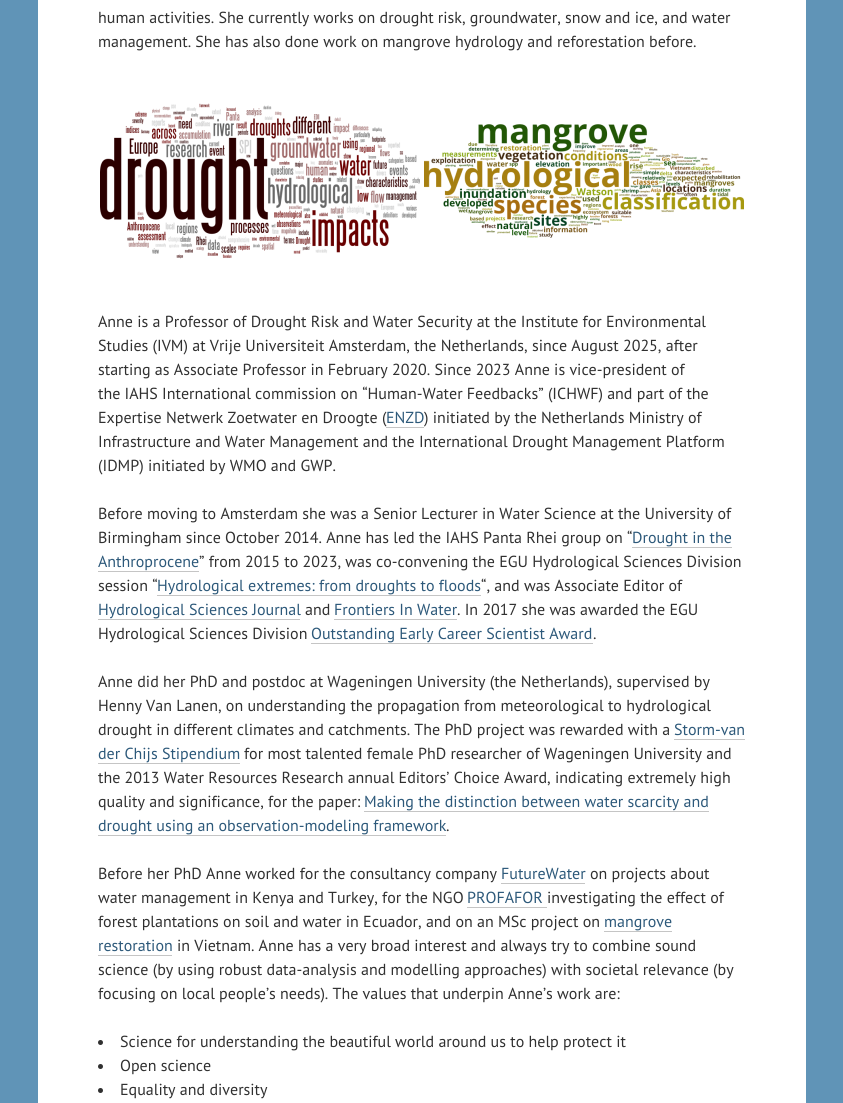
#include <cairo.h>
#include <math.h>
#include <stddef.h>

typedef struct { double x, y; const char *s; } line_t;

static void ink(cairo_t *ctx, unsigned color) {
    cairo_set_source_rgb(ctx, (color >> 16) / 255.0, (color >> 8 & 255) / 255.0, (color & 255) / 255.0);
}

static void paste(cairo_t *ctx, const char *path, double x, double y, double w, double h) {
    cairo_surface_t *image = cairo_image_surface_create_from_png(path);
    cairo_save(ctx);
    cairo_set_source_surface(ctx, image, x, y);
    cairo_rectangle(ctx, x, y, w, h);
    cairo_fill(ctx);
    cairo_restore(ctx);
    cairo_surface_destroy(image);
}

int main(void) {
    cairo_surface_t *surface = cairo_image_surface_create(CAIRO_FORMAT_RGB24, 843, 1103);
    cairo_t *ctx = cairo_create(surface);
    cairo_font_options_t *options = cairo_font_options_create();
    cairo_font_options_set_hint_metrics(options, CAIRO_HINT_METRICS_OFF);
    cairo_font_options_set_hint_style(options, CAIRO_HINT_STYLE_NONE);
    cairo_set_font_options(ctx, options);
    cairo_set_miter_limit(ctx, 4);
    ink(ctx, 0x6094B7);
    cairo_paint(ctx);
    ink(ctx, 0xFFFFFF);
    cairo_rectangle(ctx, 38, 0, 768, 1103);
    cairo_fill(ctx);
    cairo_select_font_face(ctx, "PT Sans", CAIRO_FONT_SLANT_NORMAL, CAIRO_FONT_WEIGHT_NORMAL);
    cairo_set_font_size(ctx, 16);
    ink(ctx, 0x303030);
    cairo_move_to(ctx, 98, 23);
    cairo_show_text(ctx, "human activities. She currently works on drought risk, groundwater, snow and ice, and water");
    cairo_move_to(ctx, 98, 47);
    cairo_show_text(ctx, "management. She has also done work on mangrove hydrology and reforestation before.");
    paste(ctx, "media/1.png", 100, 103, 320, 156);
    paste(ctx, "media/2.png", 424, 124, 320, 114);
    {
        static const line_t items[] = {
            {98, 327, "Anne is a Professor of Drought Risk and Water Security at the Institute for Environmental"},
            {98, 351, "Studies (IVM) at Vrije Universiteit Amsterdam, the Netherlands, since August 2025, after"},
            {98, 375, "starting as Associate Professor in February 2020. Since 2023 Anne is vice-president of"},
            {98, 399, "the IAHS International commission on “Human-Water Feedbacks” (ICHWF) and part of the"},
            {98, 423, "Expertise Netwerk Zoetwater en Droogte ("},
        };
        for (size_t i = 0; i < sizeof items / sizeof *items; i++) {
            cairo_move_to(ctx, items[i].x, items[i].y);
            cairo_show_text(ctx, items[i].s);
        }
    }
    ink(ctx, 0x2D597A);
    cairo_move_to(ctx, 386, 423);
    cairo_show_text(ctx, "ENZD");
    ink(ctx, 0xC5C5C5);
    cairo_rectangle(ctx, 386, 427, 38, 1);
    cairo_fill(ctx);
    ink(ctx, 0x303030);
    {
        static const line_t items[] = {
            {424, 423, ") initiated by the Netherlands Ministry of"},
            {98, 447, "Infrastructure and Water Management and the International Drought Management Platform"},
            {98, 471, "(IDMP) initiated by WMO and GWP."},
            {98, 519, "Before moving to Amsterdam she was a Senior Lecturer in Water Science at the University of"},
            {98, 543, "Birmingham since October 2014. Anne has led the IAHS Panta Rhei group on “"},
        };
        for (size_t i = 0; i < sizeof items / sizeof *items; i++) {
            cairo_move_to(ctx, items[i].x, items[i].y);
            cairo_show_text(ctx, items[i].s);
        }
    }
    ink(ctx, 0x2D597A);
    cairo_move_to(ctx, 632, 543);
    cairo_show_text(ctx, "Drought in the");
    ink(ctx, 0xC5C5C5);
    cairo_rectangle(ctx, 632, 547, 100, 1);
    cairo_fill(ctx);
    ink(ctx, 0x2D597A);
    cairo_move_to(ctx, 98, 567);
    cairo_show_text(ctx, "Anthroprocene");
    ink(ctx, 0xC5C5C5);
    cairo_rectangle(ctx, 98, 571, 101, 1);
    cairo_fill(ctx);
    ink(ctx, 0x303030);
    cairo_move_to(ctx, 199, 567);
    cairo_show_text(ctx, "” from 2015 to 2023, was co-convening the EGU Hydrological Sciences Division");
    cairo_move_to(ctx, 98, 591);
    cairo_show_text(ctx, "session “");
    ink(ctx, 0x2D597A);
    cairo_move_to(ctx, 157, 591);
    cairo_show_text(ctx, "Hydrological extremes: from droughts to floods");
    ink(ctx, 0xC5C5C5);
    cairo_rectangle(ctx, 157, 595, 324, 1);
    cairo_fill(ctx);
    ink(ctx, 0x303030);
    cairo_move_to(ctx, 481, 591);
    cairo_show_text(ctx, "“, and was Associate Editor of");
    ink(ctx, 0x2D597A);
    cairo_move_to(ctx, 98, 615);
    cairo_show_text(ctx, "Hydrological Sciences Journal");
    ink(ctx, 0xC5C5C5);
    cairo_rectangle(ctx, 98, 619, 202, 1);
    cairo_fill(ctx);
    ink(ctx, 0x303030);
    cairo_move_to(ctx, 305, 615);
    cairo_show_text(ctx, "and");
    ink(ctx, 0x2D597A);
    cairo_move_to(ctx, 334, 615);
    cairo_show_text(ctx, "Frontiers In Water");
    ink(ctx, 0xC5C5C5);
    cairo_rectangle(ctx, 334, 619, 123, 1);
    cairo_fill(ctx);
    ink(ctx, 0x303030);
    cairo_move_to(ctx, 457, 615);
    cairo_show_text(ctx, ". In 2017 she was awarded the EGU");
    cairo_move_to(ctx, 98, 639);
    cairo_show_text(ctx, "Hydrological Sciences Division");
    ink(ctx, 0x2D597A);
    cairo_move_to(ctx, 311, 639);
    cairo_show_text(ctx, "Outstanding Early Career Scientist Award");
    ink(ctx, 0xC5C5C5);
    cairo_rectangle(ctx, 311, 643, 282, 1);
    cairo_fill(ctx);
    ink(ctx, 0x303030);
    {
        static const line_t items[] = {
            {593, 639, "."},
            {98, 687, "Anne did her PhD and postdoc at Wageningen University (the Netherlands), supervised by"},
            {98, 711, "Henny Van Lanen, on understanding the propagation from meteorological to hydrological"},
            {98, 735, "drought in different climates and catchments. The PhD project was rewarded with a"},
        };
        for (size_t i = 0; i < sizeof items / sizeof *items; i++) {
            cairo_move_to(ctx, items[i].x, items[i].y);
            cairo_show_text(ctx, items[i].s);
        }
    }
    ink(ctx, 0x2D597A);
    cairo_move_to(ctx, 674, 735);
    cairo_show_text(ctx, "Storm-van");
    ink(ctx, 0xC5C5C5);
    cairo_rectangle(ctx, 674, 739, 71, 1);
    cairo_fill(ctx);
    ink(ctx, 0x2D597A);
    cairo_move_to(ctx, 98, 759);
    cairo_show_text(ctx, "der Chijs Stipendium");
    ink(ctx, 0xC5C5C5);
    cairo_rectangle(ctx, 98, 763, 142, 1);
    cairo_fill(ctx);
    ink(ctx, 0x303030);
    {
        static const line_t items[] = {
            {244, 759, "for most talented female PhD researcher of Wageningen University and"},
            {98, 783, "the 2013 Water Resources Research annual Editors’ Choice Award, indicating extremely high"},
            {98, 807, "quality and significance, for the paper:"},
        };
        for (size_t i = 0; i < sizeof items / sizeof *items; i++) {
            cairo_move_to(ctx, items[i].x, items[i].y);
            cairo_show_text(ctx, items[i].s);
        }
    }
    ink(ctx, 0x2D597A);
    cairo_move_to(ctx, 364, 807);
    cairo_show_text(ctx, "Making the distinction between water scarcity and");
    ink(ctx, 0xC5C5C5);
    cairo_rectangle(ctx, 364, 811, 345, 1);
    cairo_fill(ctx);
    ink(ctx, 0x2D597A);
    cairo_move_to(ctx, 98, 831);
    cairo_show_text(ctx, "drought using an observation-modeling framework");
    ink(ctx, 0xC5C5C5);
    cairo_rectangle(ctx, 98, 835, 348, 1);
    cairo_fill(ctx);
    ink(ctx, 0x303030);
    cairo_move_to(ctx, 446, 831);
    cairo_show_text(ctx, ".");
    cairo_move_to(ctx, 98, 879);
    cairo_show_text(ctx, "Before her PhD Anne worked for the consultancy company");
    ink(ctx, 0x2D597A);
    cairo_move_to(ctx, 501, 879);
    cairo_show_text(ctx, "FutureWater");
    ink(ctx, 0xC5C5C5);
    cairo_rectangle(ctx, 501, 883, 84, 1);
    cairo_fill(ctx);
    ink(ctx, 0x303030);
    cairo_move_to(ctx, 590, 879);
    cairo_show_text(ctx, "on projects about");
    cairo_move_to(ctx, 98, 903);
    cairo_show_text(ctx, "water management in Kenya and Turkey, for the NGO");
    ink(ctx, 0x2D597A);
    cairo_move_to(ctx, 467, 903);
    cairo_show_text(ctx, "PROFAFOR");
    ink(ctx, 0xC5C5C5);
    cairo_rectangle(ctx, 467, 907, 80, 1);
    cairo_fill(ctx);
    ink(ctx, 0x303030);
    cairo_move_to(ctx, 547, 903);
    cairo_show_text(ctx, "investigating the effect of");
    cairo_move_to(ctx, 98, 927);
    cairo_show_text(ctx, "forest plantations on soil and water in Ecuador, and on an MSc project on");
    ink(ctx, 0x2D597A);
    cairo_move_to(ctx, 604, 927);
    cairo_show_text(ctx, "mangrove");
    ink(ctx, 0xC5C5C5);
    cairo_rectangle(ctx, 604, 931, 68, 1);
    cairo_fill(ctx);
    ink(ctx, 0x2D597A);
    cairo_move_to(ctx, 98, 951);
    cairo_show_text(ctx, "restoration");
    ink(ctx, 0xC5C5C5);
    cairo_rectangle(ctx, 98, 955, 74, 1);
    cairo_fill(ctx);
    ink(ctx, 0x303030);
    {
        static const line_t items[] = {
            {177, 951, "in Vietnam. Anne has a very broad interest and always try to combine sound"},
            {98, 975, "science (by using robust data-analysis and modelling approaches) with societal relevance (by"},
            {98, 999, "focusing on local people’s needs). The values that underpin Anne’s work are:"},
        };
        for (size_t i = 0; i < sizeof items / sizeof *items; i++) {
            cairo_move_to(ctx, items[i].x, items[i].y);
            cairo_show_text(ctx, items[i].s);
        }
    }
    cairo_new_path(ctx);
    cairo_arc(ctx, 100.5, 1042.5, 2.5, 0, 2 * M_PI);
    cairo_fill(ctx);
    cairo_move_to(ctx, 120, 1047);
    cairo_show_text(ctx, "Science for understanding the beautiful world around us to help protect it");
    cairo_new_path(ctx);
    cairo_arc(ctx, 100.5, 1066.5, 2.5, 0, 2 * M_PI);
    cairo_fill(ctx);
    cairo_move_to(ctx, 120, 1071);
    cairo_show_text(ctx, "Open science");
    cairo_new_path(ctx);
    cairo_arc(ctx, 100.5, 1090.5, 2.5, 0, 2 * M_PI);
    cairo_fill(ctx);
    cairo_move_to(ctx, 120, 1095);
    cairo_show_text(ctx, "Equality and diversity");
    cairo_surface_write_to_png(surface, "image.png");
    cairo_font_options_destroy(options);
    cairo_destroy(ctx);
    cairo_surface_destroy(surface);
    return 0;
}
